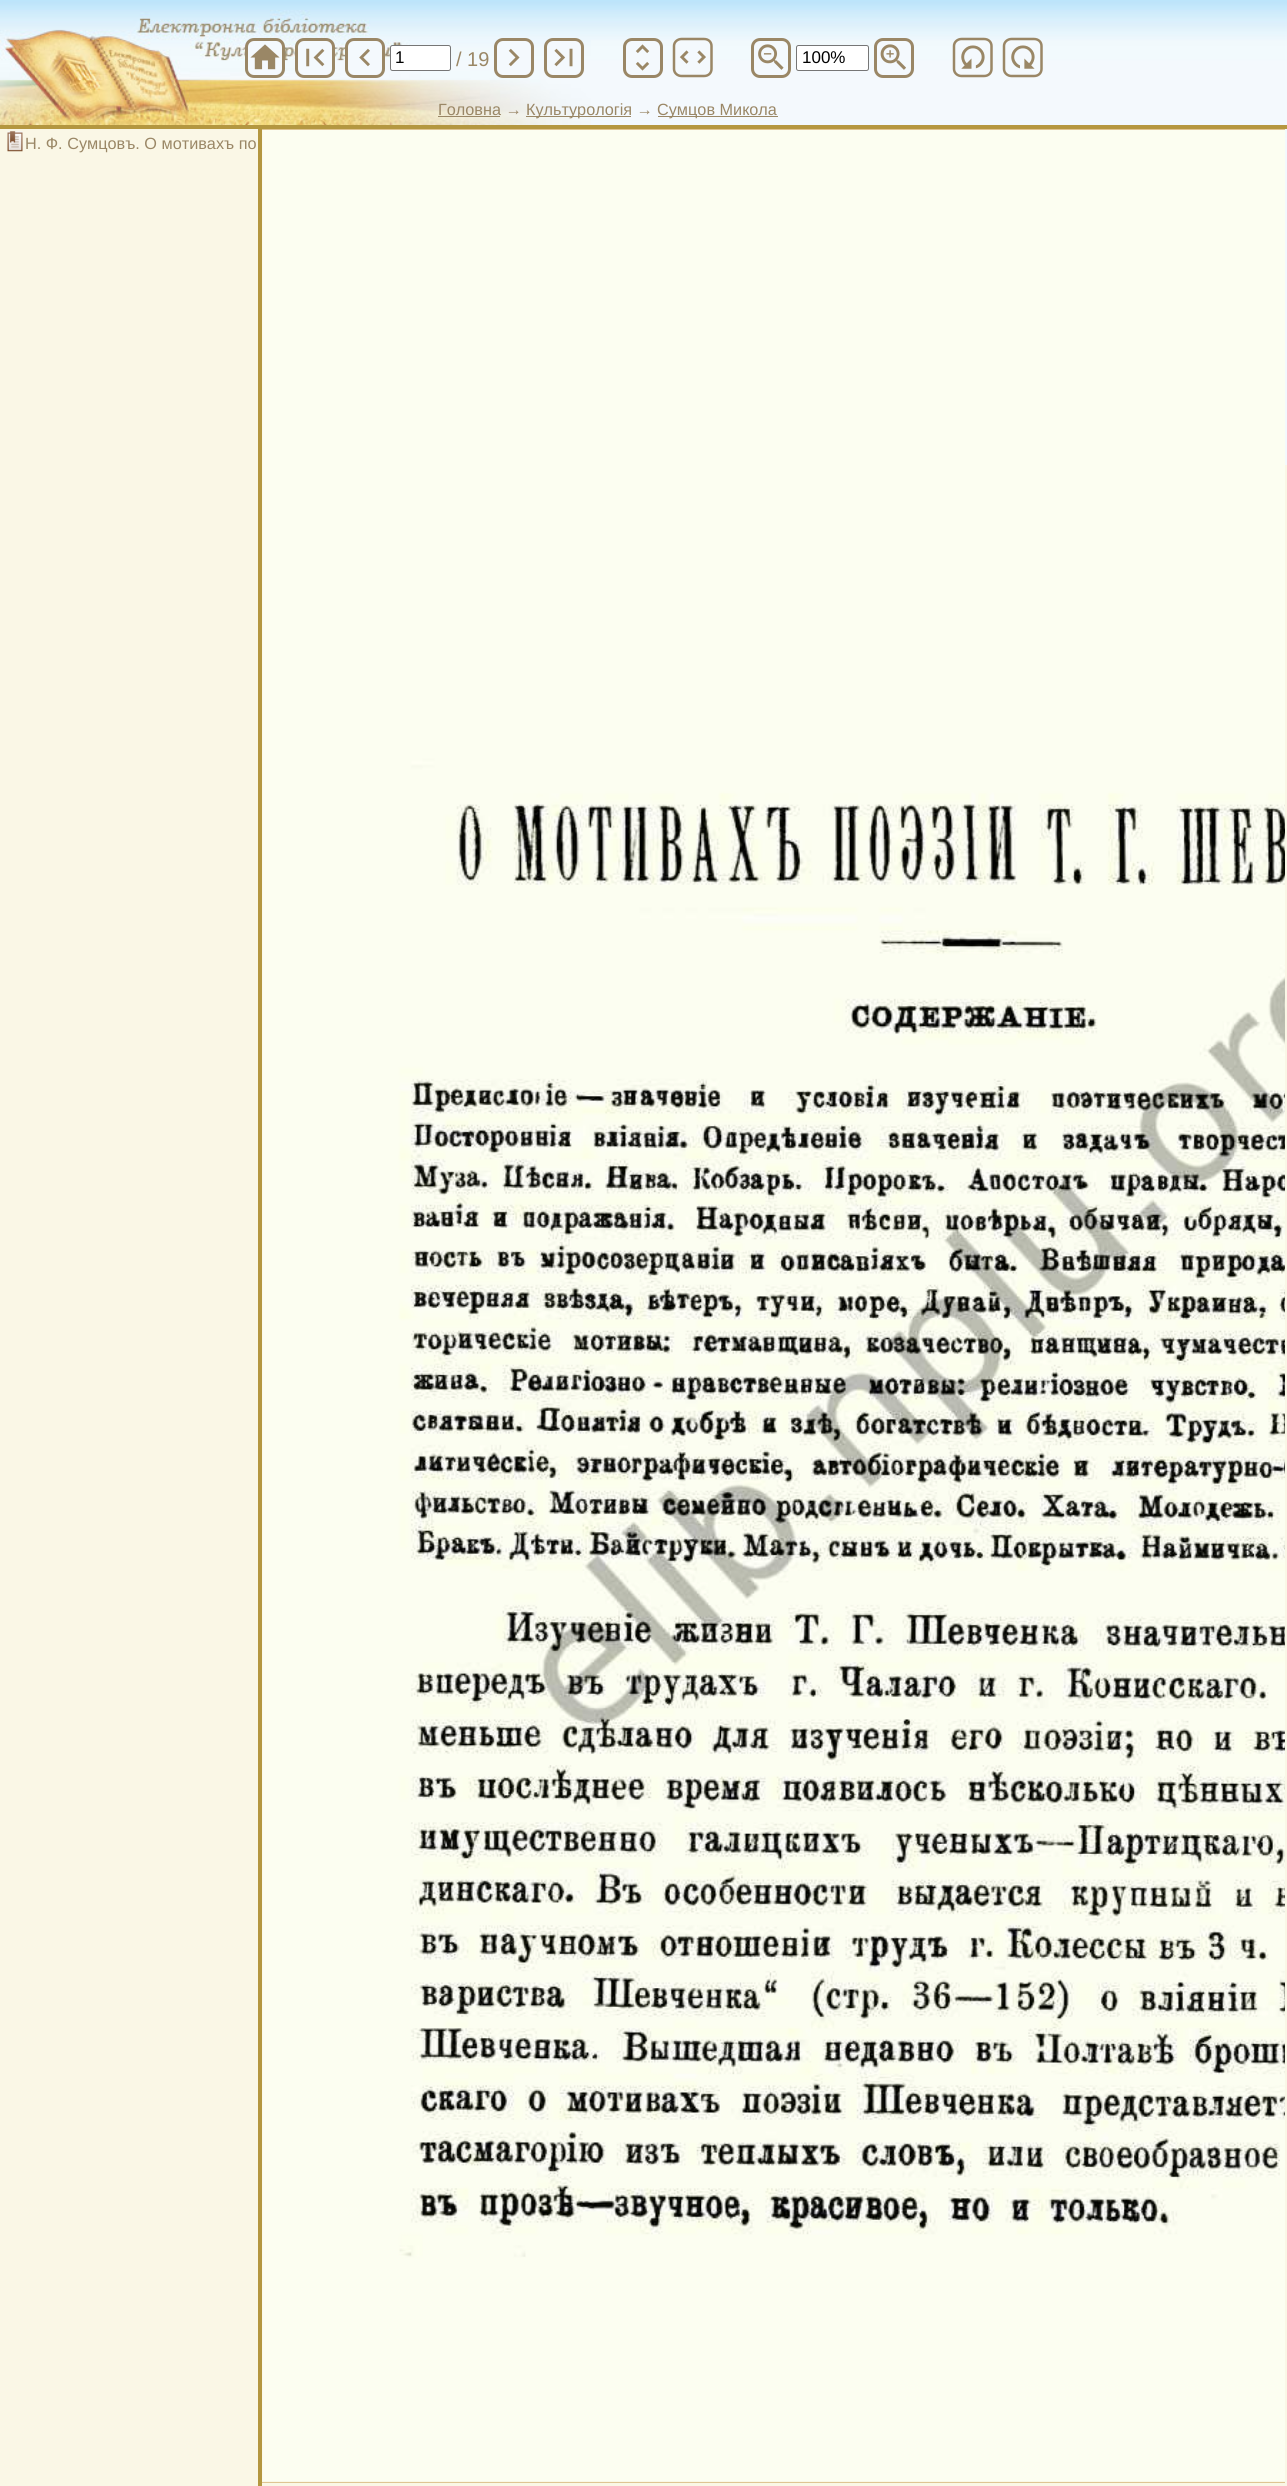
#include <cairo.h>
#include <math.h>
#include <stddef.h>


static void ink(cairo_t *ctx, unsigned color) {
    cairo_set_source_rgb(ctx, (color >> 16) / 255.0, (color >> 8 & 255) / 255.0, (color & 255) / 255.0);
}

static void round_path(cairo_t *ctx, double x, double y, double w, double h, double r) {
    cairo_new_sub_path(ctx);
    cairo_arc(ctx, x + w - r, y + h - r, r, 0, M_PI / 2);
    cairo_arc(ctx, x + r, y + h - r, r, M_PI / 2, M_PI);
    cairo_arc(ctx, x + r, y + r, r, M_PI, 1.5 * M_PI);
    cairo_arc(ctx, x + w - r, y + r, r, 1.5 * M_PI, 2 * M_PI);
    cairo_close_path(ctx);
}

static void paste(cairo_t *ctx, const char *path, double x, double y, double w, double h) {
    cairo_surface_t *image = cairo_image_surface_create_from_png(path);
    cairo_save(ctx);
    cairo_set_source_surface(ctx, image, x, y);
    cairo_rectangle(ctx, x, y, w, h);
    cairo_fill(ctx);
    cairo_restore(ctx);
    cairo_surface_destroy(image);
}

int main(void) {
    cairo_surface_t *surface = cairo_image_surface_create(CAIRO_FORMAT_RGB24, 1287, 2486);
    cairo_t *ctx = cairo_create(surface);
    cairo_font_options_t *options = cairo_font_options_create();
    cairo_font_options_set_hint_metrics(options, CAIRO_HINT_METRICS_OFF);
    cairo_font_options_set_hint_style(options, CAIRO_HINT_STYLE_NONE);
    cairo_set_font_options(ctx, options);
    cairo_set_miter_limit(ctx, 4);
    ink(ctx, 0xFAF7E6);
    cairo_paint(ctx);
    paste(ctx, "media/1.png", 591, 120, 696, 345);
    paste(ctx, "media/2.png", 0, 0, 1287, 120);
    ink(ctx, 0xB49740);
    cairo_rectangle(ctx, 0, 125, 1287, 4);
    cairo_fill(ctx);
    paste(ctx, "media/3.png", 0, 10, 591, 115);
    ink(ctx, 0xF4F9FD);
    round_path(ctx, 246.5, 39.5, 37, 37, 7.5);
    cairo_fill_preserve(ctx);
    ink(ctx, 0x9A8766);
    cairo_set_line_width(ctx, 3);
    cairo_stroke(ctx);
    paste(ctx, "media/4.png", 250, 44, 30, 26);
    ink(ctx, 0xF4F9FD);
    round_path(ctx, 296.5, 39.5, 37, 37, 7.5);
    cairo_fill_preserve(ctx);
    ink(ctx, 0x9A8766);
    cairo_stroke(ctx);
    paste(ctx, "media/5.png", 306, 48, 19, 19);
    ink(ctx, 0xF4F9FD);
    round_path(ctx, 346.5, 39.5, 37, 37, 7.5);
    cairo_fill_preserve(ctx);
    ink(ctx, 0x9A8766);
    cairo_stroke(ctx);
    paste(ctx, "media/6.png", 359, 48, 11, 19);
    ink(ctx, 0xFFFFFF);
    round_path(ctx, 390.5, 45.5, 60, 25, 2);
    cairo_fill_preserve(ctx);
    ink(ctx, 0x767676);
    cairo_set_line_width(ctx, 1);
    cairo_stroke(ctx);
    cairo_select_font_face(ctx, "Liberation Sans", CAIRO_FONT_SLANT_NORMAL, CAIRO_FONT_WEIGHT_NORMAL);
    cairo_set_font_size(ctx, 17);
    ink(ctx, 0x000000);
    cairo_move_to(ctx, 395, 63);
    cairo_show_text(ctx, "1");
    cairo_set_font_size(ctx, 20);
    ink(ctx, 0x9A8766);
    cairo_move_to(ctx, 456, 66);
    cairo_show_text(ctx, "/ 19");
    ink(ctx, 0xF4F9FD);
    round_path(ctx, 495.5, 39.5, 37, 37, 7.5);
    cairo_fill_preserve(ctx);
    ink(ctx, 0x9A8766);
    cairo_set_line_width(ctx, 3);
    cairo_stroke(ctx);
    paste(ctx, "media/7.png", 508, 48, 12, 19);
    ink(ctx, 0xF4F9FD);
    round_path(ctx, 545.5, 39.5, 37, 37, 7.5);
    cairo_fill_preserve(ctx);
    ink(ctx, 0x9A8766);
    cairo_stroke(ctx);
    paste(ctx, "media/8.png", 554, 48, 19, 19);
    ink(ctx, 0xF4F9FD);
    round_path(ctx, 624.5, 39.5, 37, 37, 7.5);
    cairo_fill_preserve(ctx);
    ink(ctx, 0x9A8766);
    cairo_stroke(ctx);
    paste(ctx, "media/9.png", 635, 44, 15, 27);
    ink(ctx, 0xF4F9FD);
    cairo_new_path(ctx);
    cairo_move_to(ctx, 713, 46);
    cairo_line_to(ctx, 713, 69);
    cairo_curve_to(ctx, 713, 74, 709, 78, 704, 78);
    cairo_line_to(ctx, 682, 78);
    cairo_curve_to(ctx, 677, 78, 673, 74, 673, 69);
    cairo_line_to(ctx, 673, 46);
    cairo_curve_to(ctx, 673, 41, 677, 38, 682, 38);
    cairo_line_to(ctx, 704, 38);
    cairo_curve_to(ctx, 709, 38, 713, 41, 713, 46);
    cairo_close_path(ctx);
    cairo_fill(ctx);
    cairo_new_path(ctx);
    cairo_move_to(ctx, 711.5, 46);
    cairo_line_to(ctx, 711.5, 69);
    cairo_curve_to(ctx, 711.5, 73, 708.5, 76, 704, 76);
    cairo_line_to(ctx, 681.5, 76);
    cairo_curve_to(ctx, 677.5, 76, 674, 73, 674, 69);
    cairo_line_to(ctx, 674, 46);
    cairo_curve_to(ctx, 674, 42, 677.5, 39, 681.5, 39);
    cairo_line_to(ctx, 704, 39);
    cairo_curve_to(ctx, 708.5, 39, 711.5, 42, 711.5, 46);
    cairo_close_path(ctx);
    ink(ctx, 0x9A8766);
    cairo_set_line_width(ctx, 2.5);
    cairo_stroke(ctx);
    paste(ctx, "media/10.png", 679, 50, 27, 14);
    ink(ctx, 0xF4F9FD);
    round_path(ctx, 752.5, 39.5, 37, 37, 7.5);
    cairo_fill_preserve(ctx);
    ink(ctx, 0x9A8766);
    cairo_set_line_width(ctx, 3);
    cairo_stroke(ctx);
    paste(ctx, "media/11.png", 758, 44, 26, 26);
    ink(ctx, 0xFFFFFF);
    round_path(ctx, 796.5, 45.5, 72, 25, 2);
    cairo_fill_preserve(ctx);
    ink(ctx, 0x767676);
    cairo_set_line_width(ctx, 1);
    cairo_stroke(ctx);
    cairo_set_font_size(ctx, 17);
    ink(ctx, 0x000000);
    cairo_move_to(ctx, 802, 63);
    cairo_show_text(ctx, "100%");
    ink(ctx, 0xF4F9FD);
    round_path(ctx, 875.5, 39.5, 37, 37, 7.5);
    cairo_fill_preserve(ctx);
    ink(ctx, 0x9A8766);
    cairo_set_line_width(ctx, 3);
    cairo_stroke(ctx);
    paste(ctx, "media/12.png", 880, 44, 26, 26);
    ink(ctx, 0xF4F9FD);
    cairo_new_path(ctx);
    cairo_move_to(ctx, 953, 46);
    cairo_line_to(ctx, 953, 69);
    cairo_curve_to(ctx, 953, 74, 957, 78, 962, 78);
    cairo_line_to(ctx, 984, 78);
    cairo_curve_to(ctx, 989, 78, 993, 74, 993, 69);
    cairo_line_to(ctx, 993, 46);
    cairo_curve_to(ctx, 993, 41, 989, 38, 984, 38);
    cairo_line_to(ctx, 962, 38);
    cairo_curve_to(ctx, 957, 38, 953, 41, 953, 46);
    cairo_close_path(ctx);
    cairo_fill(ctx);
    cairo_new_path(ctx);
    cairo_move_to(ctx, 954, 46);
    cairo_line_to(ctx, 954, 69);
    cairo_curve_to(ctx, 954, 73, 957.5, 76, 961.5, 76);
    cairo_line_to(ctx, 984, 76);
    cairo_curve_to(ctx, 988.5, 76, 991.5, 73, 991.5, 69);
    cairo_line_to(ctx, 991.5, 46);
    cairo_curve_to(ctx, 991.5, 42, 988.5, 39, 984, 39);
    cairo_line_to(ctx, 961.5, 39);
    cairo_curve_to(ctx, 957.5, 39, 954, 42, 954, 46);
    cairo_close_path(ctx);
    ink(ctx, 0x9A8766);
    cairo_set_line_width(ctx, 2.5);
    cairo_stroke(ctx);
    paste(ctx, "media/13.png", 961, 45, 24, 24);
    ink(ctx, 0xF4F9FD);
    cairo_new_path(ctx);
    cairo_move_to(ctx, 1043, 46);
    cairo_line_to(ctx, 1043, 69);
    cairo_curve_to(ctx, 1043, 74, 1039, 78, 1034, 78);
    cairo_line_to(ctx, 1012, 78);
    cairo_curve_to(ctx, 1007, 78, 1003, 74, 1003, 69);
    cairo_line_to(ctx, 1003, 46);
    cairo_curve_to(ctx, 1003, 41, 1007, 38, 1012, 38);
    cairo_line_to(ctx, 1034, 38);
    cairo_curve_to(ctx, 1039, 38, 1043, 41, 1043, 46);
    cairo_close_path(ctx);
    cairo_fill(ctx);
    cairo_new_path(ctx);
    cairo_move_to(ctx, 1041.5, 46);
    cairo_line_to(ctx, 1041.5, 69);
    cairo_curve_to(ctx, 1041.5, 73, 1038.5, 76, 1034, 76);
    cairo_line_to(ctx, 1011.5, 76);
    cairo_curve_to(ctx, 1007.5, 76, 1004, 73, 1004, 69);
    cairo_line_to(ctx, 1004, 46);
    cairo_curve_to(ctx, 1004, 42, 1007.5, 39, 1011.5, 39);
    cairo_line_to(ctx, 1034, 39);
    cairo_curve_to(ctx, 1038.5, 39, 1041.5, 42, 1041.5, 46);
    cairo_close_path(ctx);
    ink(ctx, 0x9A8766);
    cairo_stroke(ctx);
    paste(ctx, "media/14.png", 1011, 45, 24, 24);
    cairo_set_font_size(ctx, 16.25);
    cairo_move_to(ctx, 438, 115);
    cairo_show_text(ctx, "Головна →");
    cairo_rectangle(ctx, 438, 116, 62, 1);
    cairo_fill(ctx);
    cairo_rectangle(ctx, 526, 116, 105, 1);
    cairo_fill(ctx);
    cairo_move_to(ctx, 526, 115);
    cairo_show_text(ctx, "Культурологія →");
    cairo_rectangle(ctx, 658, 116, 120, 1);
    cairo_fill(ctx);
    cairo_move_to(ctx, 657, 115);
    cairo_show_text(ctx, "Сумцов Микола");
    ink(ctx, 0xFAF7E6);
    cairo_rectangle(ctx, 591, 130, 694, 335);
    cairo_fill(ctx);
    cairo_save(ctx);
    cairo_rectangle(ctx, 258, 129, 1027, 2357);
    cairo_clip(ctx);
    cairo_rectangle(ctx, 261.5, 129.5, 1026, 2353);
    ink(ctx, 0xDEC492);
    cairo_set_line_width(ctx, 1);
    cairo_stroke(ctx);
    cairo_restore(ctx);
    ink(ctx, 0xB49740);
    cairo_rectangle(ctx, 258, 129, 4, 2357);
    cairo_fill(ctx);
    paste(ctx, "media/15.png", 7, 131, 16, 21);
    ink(ctx, 0x9A8766);
    cairo_move_to(ctx, 25, 149);
    cairo_show_text(ctx, "Н. Ф. Сумцовъ. О мотивахъ по");
    paste(ctx, "media/16.png", 262, 130, 1023, 2351);
    cairo_surface_write_to_png(surface, "image.png");
    cairo_font_options_destroy(options);
    cairo_destroy(ctx);
    cairo_surface_destroy(surface);
    return 0;
}
